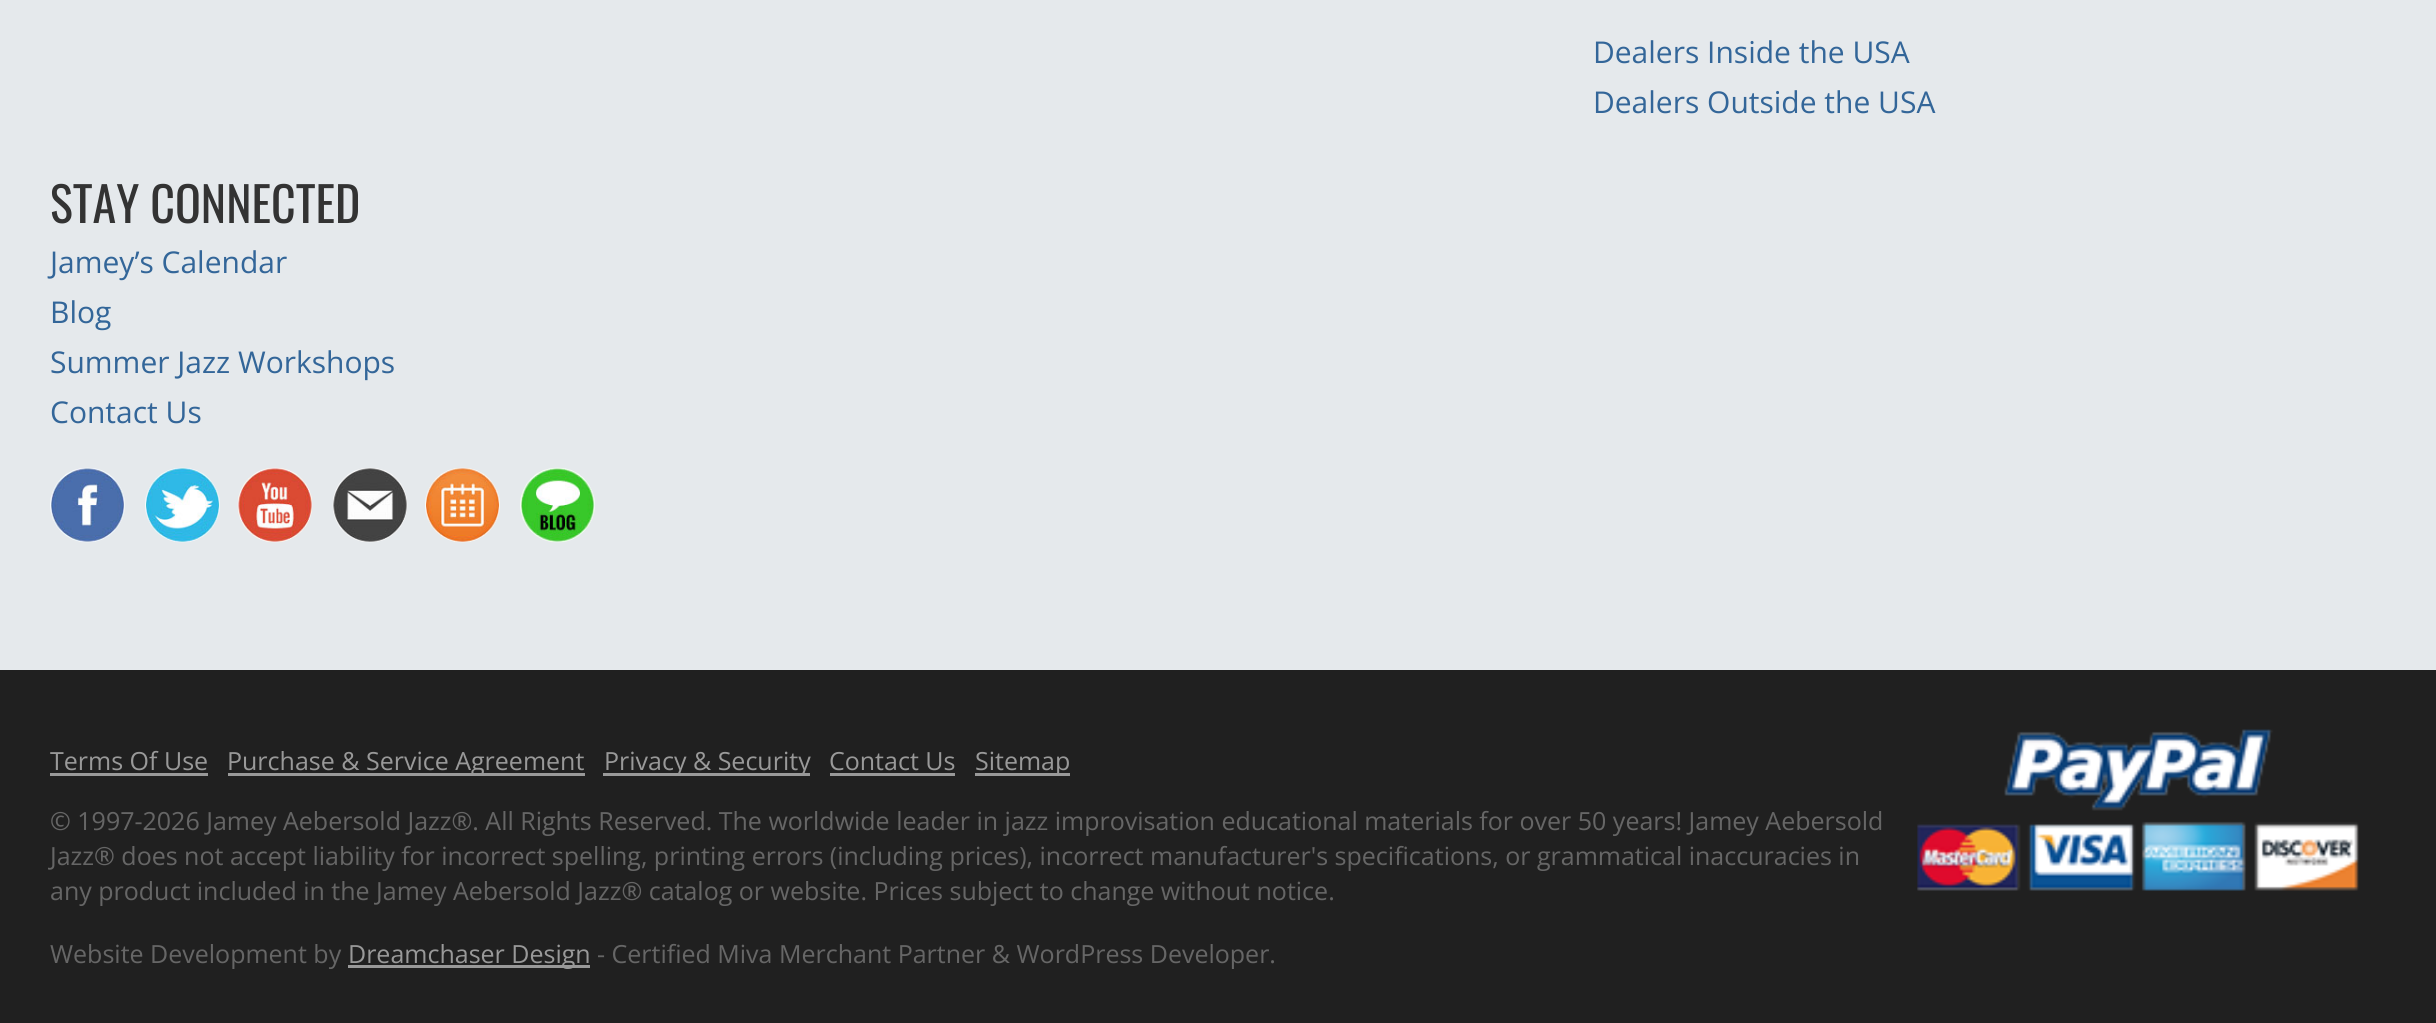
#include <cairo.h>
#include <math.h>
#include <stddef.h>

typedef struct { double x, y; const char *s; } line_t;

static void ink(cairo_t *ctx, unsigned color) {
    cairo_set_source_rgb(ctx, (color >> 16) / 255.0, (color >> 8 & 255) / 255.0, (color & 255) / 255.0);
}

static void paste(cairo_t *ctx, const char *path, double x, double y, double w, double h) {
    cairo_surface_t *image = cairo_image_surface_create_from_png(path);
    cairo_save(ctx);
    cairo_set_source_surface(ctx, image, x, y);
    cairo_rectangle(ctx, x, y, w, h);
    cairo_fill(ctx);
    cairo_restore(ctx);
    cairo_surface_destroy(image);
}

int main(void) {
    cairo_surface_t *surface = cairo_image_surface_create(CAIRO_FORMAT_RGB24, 2436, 1023);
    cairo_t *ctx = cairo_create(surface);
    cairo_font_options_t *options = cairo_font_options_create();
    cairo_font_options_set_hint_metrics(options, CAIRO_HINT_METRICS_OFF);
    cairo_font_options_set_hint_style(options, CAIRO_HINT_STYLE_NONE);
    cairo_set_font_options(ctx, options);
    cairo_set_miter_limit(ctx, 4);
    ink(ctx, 0xE5E9EC);
    cairo_paint(ctx);
    cairo_select_font_face(ctx, "Open Sans", CAIRO_FONT_SLANT_NORMAL, CAIRO_FONT_WEIGHT_NORMAL);
    cairo_set_font_size(ctx, 30);
    ink(ctx, 0x336699);
    cairo_move_to(ctx, 1593, 63);
    cairo_show_text(ctx, "Dealers Inside the USA");
    cairo_move_to(ctx, 1593, 113);
    cairo_show_text(ctx, "Dealers Outside the USA");
    cairo_select_font_face(ctx, "Oswald", CAIRO_FONT_SLANT_NORMAL, CAIRO_FONT_WEIGHT_NORMAL);
    cairo_set_font_size(ctx, 48);
    ink(ctx, 0x333333);
    cairo_move_to(ctx, 50, 223);
    cairo_show_text(ctx, "STAY CONNECTED");
    cairo_select_font_face(ctx, "Open Sans", CAIRO_FONT_SLANT_NORMAL, CAIRO_FONT_WEIGHT_NORMAL);
    cairo_set_font_size(ctx, 30);
    ink(ctx, 0x336699);
    {
        static const line_t items[] = {
            {50, 273, "Jamey’s Calendar"},
            {50, 323, "Blog"},
            {50, 373, "Summer Jazz Workshops"},
            {50, 423, "Contact Us"},
        };
        for (size_t i = 0; i < sizeof items / sizeof *items; i++) {
            cairo_move_to(ctx, items[i].x, items[i].y);
            cairo_show_text(ctx, items[i].s);
        }
    }
    paste(ctx, "media/1.png", 50, 467, 75, 76);
    paste(ctx, "media/2.png", 145, 467, 75, 76);
    paste(ctx, "media/3.png", 237, 467, 76, 76);
    paste(ctx, "media/4.png", 332, 467, 76, 76);
    paste(ctx, "media/5.png", 425, 467, 75, 76);
    paste(ctx, "media/6.png", 520, 467, 75, 76);
    ink(ctx, 0x202020);
    cairo_rectangle(ctx, 0, 670, 2436, 353);
    cairo_fill(ctx);
    cairo_set_font_size(ctx, 25);
    ink(ctx, 0x999999);
    cairo_move_to(ctx, 50, 770);
    cairo_show_text(ctx, "Terms Of Use");
    cairo_rectangle(ctx, 50, 773, 158, 3);
    cairo_fill(ctx);
    cairo_rectangle(ctx, 228, 773, 357, 3);
    cairo_fill(ctx);
    cairo_move_to(ctx, 227, 770);
    cairo_show_text(ctx, "Purchase & Service Agreement");
    cairo_rectangle(ctx, 603, 773, 207, 3);
    cairo_fill(ctx);
    cairo_move_to(ctx, 604, 770);
    cairo_show_text(ctx, "Privacy & Security");
    cairo_move_to(ctx, 829, 770);
    cairo_show_text(ctx, "Contact Us");
    cairo_rectangle(ctx, 830, 773, 125, 3);
    cairo_fill(ctx);
    cairo_rectangle(ctx, 975, 773, 95, 3);
    cairo_fill(ctx);
    cairo_move_to(ctx, 975, 770);
    cairo_show_text(ctx, "Sitemap");
    paste(ctx, "media/7.png", 1917, 729, 442, 162);
    ink(ctx, 0x666666);
    {
        static const line_t items[] = {
            {50, 830, "© 1997-2026 Jamey Aebersold Jazz®. All Rights Reserved. The worldwide leader in jazz improvisation educational materials for over 50 years! Jamey Aebersold"},
            {50, 865, "Jazz® does not accept liability for incorrect spelling, printing errors (including prices), incorrect manufacturer's specifications, or grammatical inaccuracies in"},
            {50, 900, "any product included in the Jamey Aebersold Jazz® catalog or website. Prices subject to change without notice."},
            {50, 963, "Website Development by"},
        };
        for (size_t i = 0; i < sizeof items / sizeof *items; i++) {
            cairo_move_to(ctx, items[i].x, items[i].y);
            cairo_show_text(ctx, items[i].s);
        }
    }
    ink(ctx, 0x999999);
    cairo_rectangle(ctx, 348, 965, 242, 3);
    cairo_fill(ctx);
    cairo_move_to(ctx, 348, 963);
    cairo_show_text(ctx, "Dreamchaser Design");
    ink(ctx, 0x666666);
    cairo_move_to(ctx, 597, 963);
    cairo_show_text(ctx, "- Certified Miva Merchant Partner & WordPress Developer.");
    cairo_surface_write_to_png(surface, "image.png");
    cairo_font_options_destroy(options);
    cairo_destroy(ctx);
    cairo_surface_destroy(surface);
    return 0;
}
